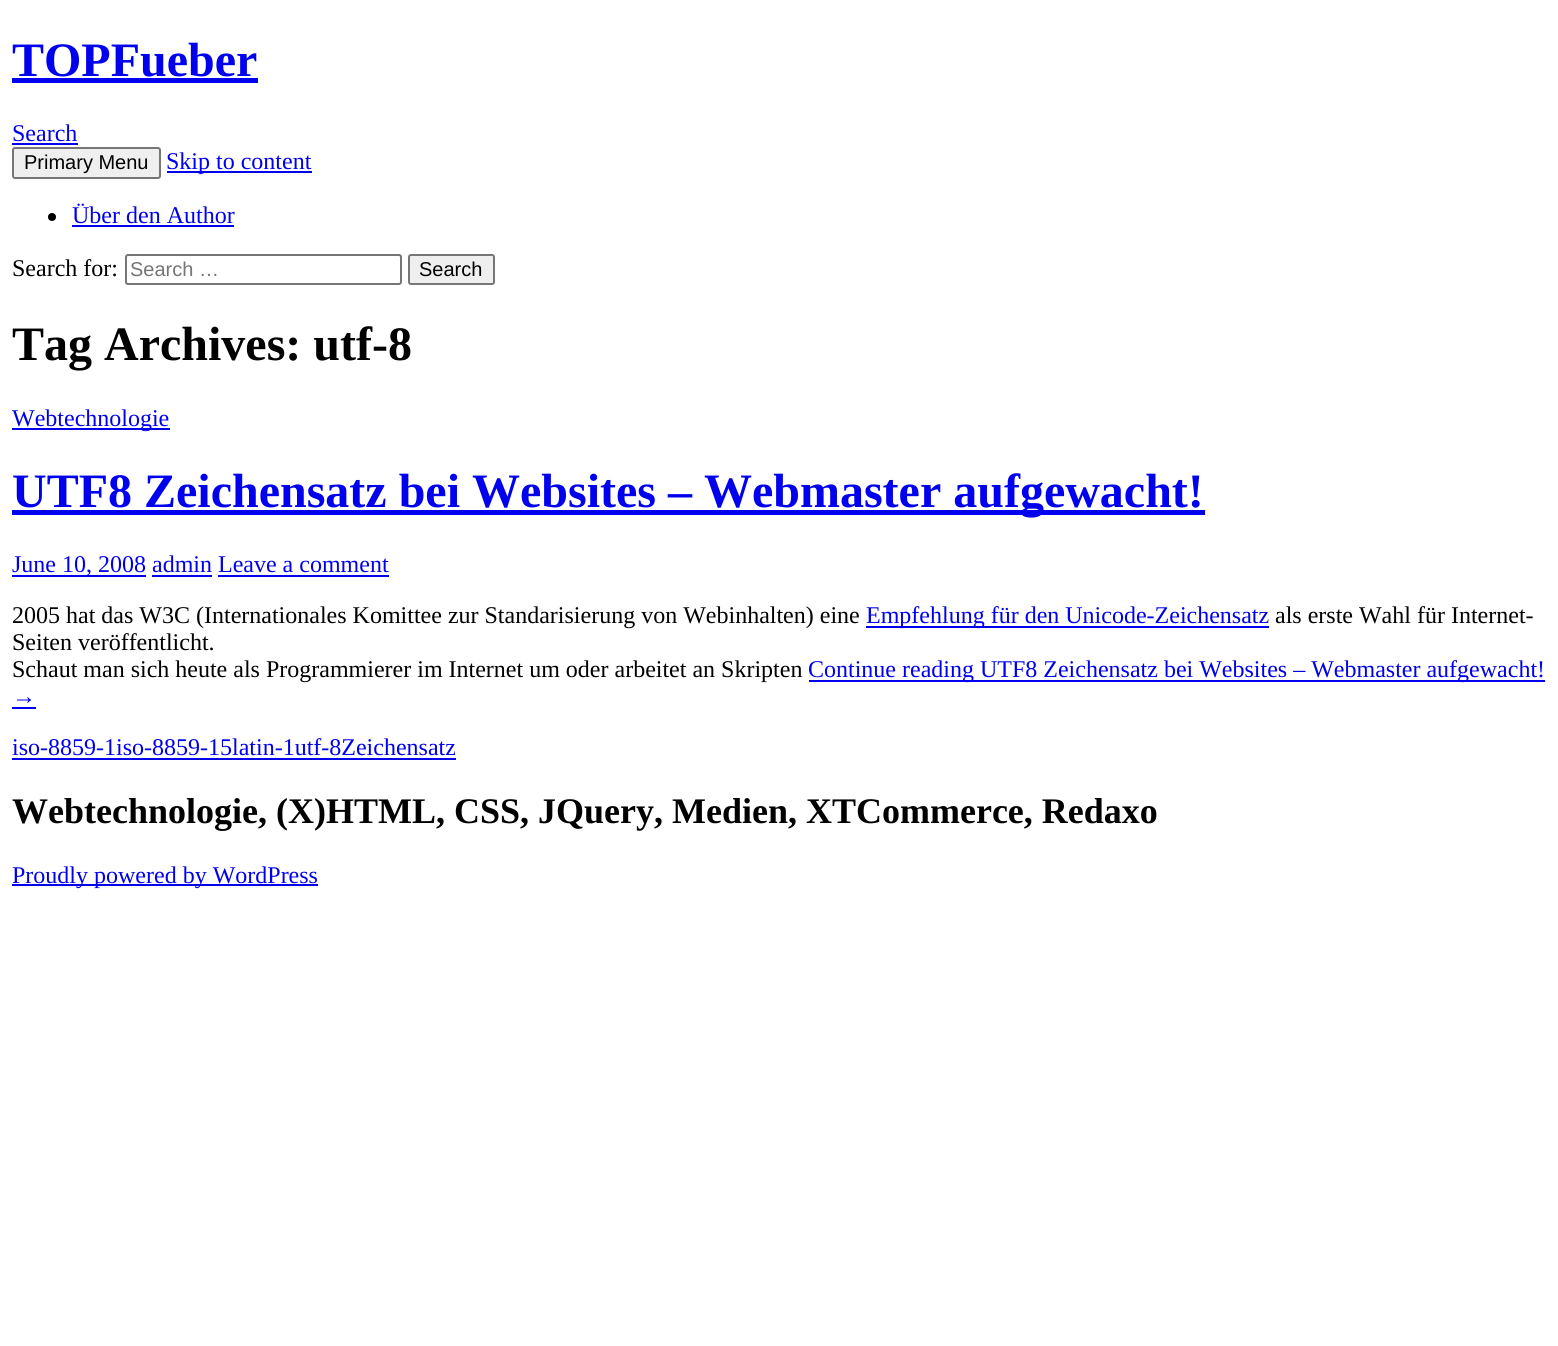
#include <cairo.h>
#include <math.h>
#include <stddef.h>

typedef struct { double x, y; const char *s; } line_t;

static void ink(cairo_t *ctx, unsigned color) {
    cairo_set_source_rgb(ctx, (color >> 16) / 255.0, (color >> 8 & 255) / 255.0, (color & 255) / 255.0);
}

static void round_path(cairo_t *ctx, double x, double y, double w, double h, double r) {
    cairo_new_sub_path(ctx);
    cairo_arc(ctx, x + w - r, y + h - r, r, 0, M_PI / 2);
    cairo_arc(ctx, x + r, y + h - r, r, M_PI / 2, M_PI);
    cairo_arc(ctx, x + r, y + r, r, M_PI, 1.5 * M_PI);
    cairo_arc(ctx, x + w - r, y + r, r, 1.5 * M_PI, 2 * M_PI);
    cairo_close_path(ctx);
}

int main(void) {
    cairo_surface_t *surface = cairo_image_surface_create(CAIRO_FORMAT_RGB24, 1558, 1346);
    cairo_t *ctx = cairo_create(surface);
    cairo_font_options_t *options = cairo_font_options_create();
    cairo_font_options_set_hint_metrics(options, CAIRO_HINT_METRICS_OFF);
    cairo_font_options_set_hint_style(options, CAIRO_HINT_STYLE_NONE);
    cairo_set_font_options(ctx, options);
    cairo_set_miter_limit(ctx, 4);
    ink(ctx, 0xFFFFFF);
    cairo_paint(ctx);
    cairo_select_font_face(ctx, "Liberation Serif", CAIRO_FONT_SLANT_NORMAL, CAIRO_FONT_WEIGHT_BOLD);
    cairo_set_font_size(ctx, 48);
    ink(ctx, 0x0000EE);
    cairo_move_to(ctx, 12, 76);
    cairo_show_text(ctx, "TOPFueber");
    cairo_rectangle(ctx, 12, 78, 246, 5);
    cairo_fill(ctx);
    cairo_select_font_face(ctx, "Liberation Serif", CAIRO_FONT_SLANT_NORMAL, CAIRO_FONT_WEIGHT_NORMAL);
    cairo_set_font_size(ctx, 24);
    cairo_move_to(ctx, 12, 141);
    cairo_show_text(ctx, "Search");
    cairo_rectangle(ctx, 12, 143, 66, 2);
    cairo_fill(ctx);
    ink(ctx, 0xEFEFEF);
    round_path(ctx, 13, 148, 147, 30, 2);
    cairo_fill_preserve(ctx);
    ink(ctx, 0x767676);
    cairo_stroke(ctx);
    cairo_select_font_face(ctx, "Liberation Sans", CAIRO_FONT_SLANT_NORMAL, CAIRO_FONT_WEIGHT_NORMAL);
    cairo_set_font_size(ctx, 20);
    ink(ctx, 0x000000);
    cairo_move_to(ctx, 24, 169);
    cairo_show_text(ctx, "Primary Menu");
    ink(ctx, 0x0000EE);
    cairo_rectangle(ctx, 167, 171, 145, 2);
    cairo_fill(ctx);
    cairo_select_font_face(ctx, "Liberation Serif", CAIRO_FONT_SLANT_NORMAL, CAIRO_FONT_WEIGHT_NORMAL);
    cairo_set_font_size(ctx, 24);
    cairo_move_to(ctx, 166, 169);
    cairo_show_text(ctx, "Skip to content");
    ink(ctx, 0x000000);
    cairo_new_path(ctx);
    cairo_arc(ctx, 52, 217, 4, 0, 2 * M_PI);
    cairo_fill(ctx);
    ink(ctx, 0x0000EE);
    cairo_move_to(ctx, 72, 223);
    cairo_show_text(ctx, "Über den Author");
    cairo_rectangle(ctx, 72, 225, 162, 2);
    cairo_fill(ctx);
    ink(ctx, 0x000000);
    cairo_move_to(ctx, 12, 276);
    cairo_show_text(ctx, "Search for:");
    round_path(ctx, 126, 255, 275, 29, 2);
    ink(ctx, 0x767676);
    cairo_stroke(ctx);
    cairo_select_font_face(ctx, "Liberation Sans", CAIRO_FONT_SLANT_NORMAL, CAIRO_FONT_WEIGHT_NORMAL);
    cairo_set_font_size(ctx, 20);
    ink(ctx, 0x757575);
    cairo_move_to(ctx, 130, 276);
    cairo_show_text(ctx, "Search …");
    ink(ctx, 0xEFEFEF);
    round_path(ctx, 409, 255, 85, 29, 2);
    cairo_fill_preserve(ctx);
    ink(ctx, 0x767676);
    cairo_stroke(ctx);
    ink(ctx, 0x000000);
    cairo_move_to(ctx, 419, 276);
    cairo_show_text(ctx, "Search");
    cairo_select_font_face(ctx, "Liberation Serif", CAIRO_FONT_SLANT_NORMAL, CAIRO_FONT_WEIGHT_BOLD);
    cairo_set_font_size(ctx, 48);
    cairo_move_to(ctx, 12, 360);
    cairo_show_text(ctx, "Tag Archives: utf-8");
    ink(ctx, 0x0000EE);
    cairo_rectangle(ctx, 12, 428, 158, 2);
    cairo_fill(ctx);
    cairo_select_font_face(ctx, "Liberation Serif", CAIRO_FONT_SLANT_NORMAL, CAIRO_FONT_WEIGHT_NORMAL);
    cairo_set_font_size(ctx, 24);
    cairo_move_to(ctx, 12, 426);
    cairo_show_text(ctx, "Webtechnologie");
    cairo_rectangle(ctx, 12, 510, 1193, 5);
    cairo_fill(ctx);
    cairo_select_font_face(ctx, "Liberation Serif", CAIRO_FONT_SLANT_NORMAL, CAIRO_FONT_WEIGHT_BOLD);
    cairo_set_font_size(ctx, 48);
    cairo_move_to(ctx, 12, 507);
    cairo_show_text(ctx, "UTF8 Zeichensatz bei Websites – Webmaster aufgewacht!");
    cairo_rectangle(ctx, 12, 575, 134, 2);
    cairo_fill(ctx);
    cairo_select_font_face(ctx, "Liberation Serif", CAIRO_FONT_SLANT_NORMAL, CAIRO_FONT_WEIGHT_NORMAL);
    cairo_set_font_size(ctx, 24);
    cairo_move_to(ctx, 12, 572);
    cairo_show_text(ctx, "June 10, 2008 admin Leave a comment");
    cairo_rectangle(ctx, 152, 575, 60, 2);
    cairo_fill(ctx);
    cairo_rectangle(ctx, 218, 575, 171, 2);
    cairo_fill(ctx);
    ink(ctx, 0x000000);
    cairo_move_to(ctx, 12, 623);
    cairo_show_text(ctx, "2005 hat das W3C (Internationales Komittee zur Standarisierung von Webinhalten) eine");
    ink(ctx, 0x0000EE);
    cairo_rectangle(ctx, 866, 626, 403, 2);
    cairo_fill(ctx);
    cairo_move_to(ctx, 866, 623);
    cairo_show_text(ctx, "Empfehlung für den Unicode-Zeichensatz");
    ink(ctx, 0x000000);
    {
        static const line_t items[] = {
            {1275, 623, "als erste Wahl für Internet-"},
            {12, 650, "Seiten veröffentlicht."},
            {12, 677, "Schaut man sich heute als Programmierer im Internet um oder arbeitet an Skripten"},
        };
        for (size_t i = 0; i < sizeof items / sizeof *items; i++) {
            cairo_move_to(ctx, items[i].x, items[i].y);
            cairo_show_text(ctx, items[i].s);
        }
    }
    ink(ctx, 0x0000EE);
    cairo_rectangle(ctx, 809, 680, 736, 2);
    cairo_fill(ctx);
    cairo_move_to(ctx, 808, 677);
    cairo_show_text(ctx, "Continue reading UTF8 Zeichensatz bei Websites – Webmaster aufgewacht!");
    cairo_move_to(ctx, 12, 704);
    cairo_show_text(ctx, "→");
    cairo_rectangle(ctx, 12, 707, 24, 2);
    cairo_fill(ctx);
    cairo_move_to(ctx, 12, 755);
    cairo_show_text(ctx, "iso-8859-1iso-8859-15latin-1utf-8Zeichensatz");
    cairo_rectangle(ctx, 12, 758, 444, 2);
    cairo_fill(ctx);
    cairo_select_font_face(ctx, "Liberation Serif", CAIRO_FONT_SLANT_NORMAL, CAIRO_FONT_WEIGHT_BOLD);
    cairo_set_font_size(ctx, 36);
    ink(ctx, 0x000000);
    cairo_move_to(ctx, 12, 823);
    cairo_show_text(ctx, "Webtechnologie, (X)HTML, CSS, JQuery, Medien, XTCommerce, Redaxo");
    ink(ctx, 0x0000EE);
    cairo_rectangle(ctx, 12, 884, 306, 2);
    cairo_fill(ctx);
    cairo_select_font_face(ctx, "Liberation Serif", CAIRO_FONT_SLANT_NORMAL, CAIRO_FONT_WEIGHT_NORMAL);
    cairo_set_font_size(ctx, 24);
    cairo_move_to(ctx, 12, 883);
    cairo_show_text(ctx, "Proudly powered by WordPress");
    cairo_surface_write_to_png(surface, "image.png");
    cairo_font_options_destroy(options);
    cairo_destroy(ctx);
    cairo_surface_destroy(surface);
    return 0;
}
